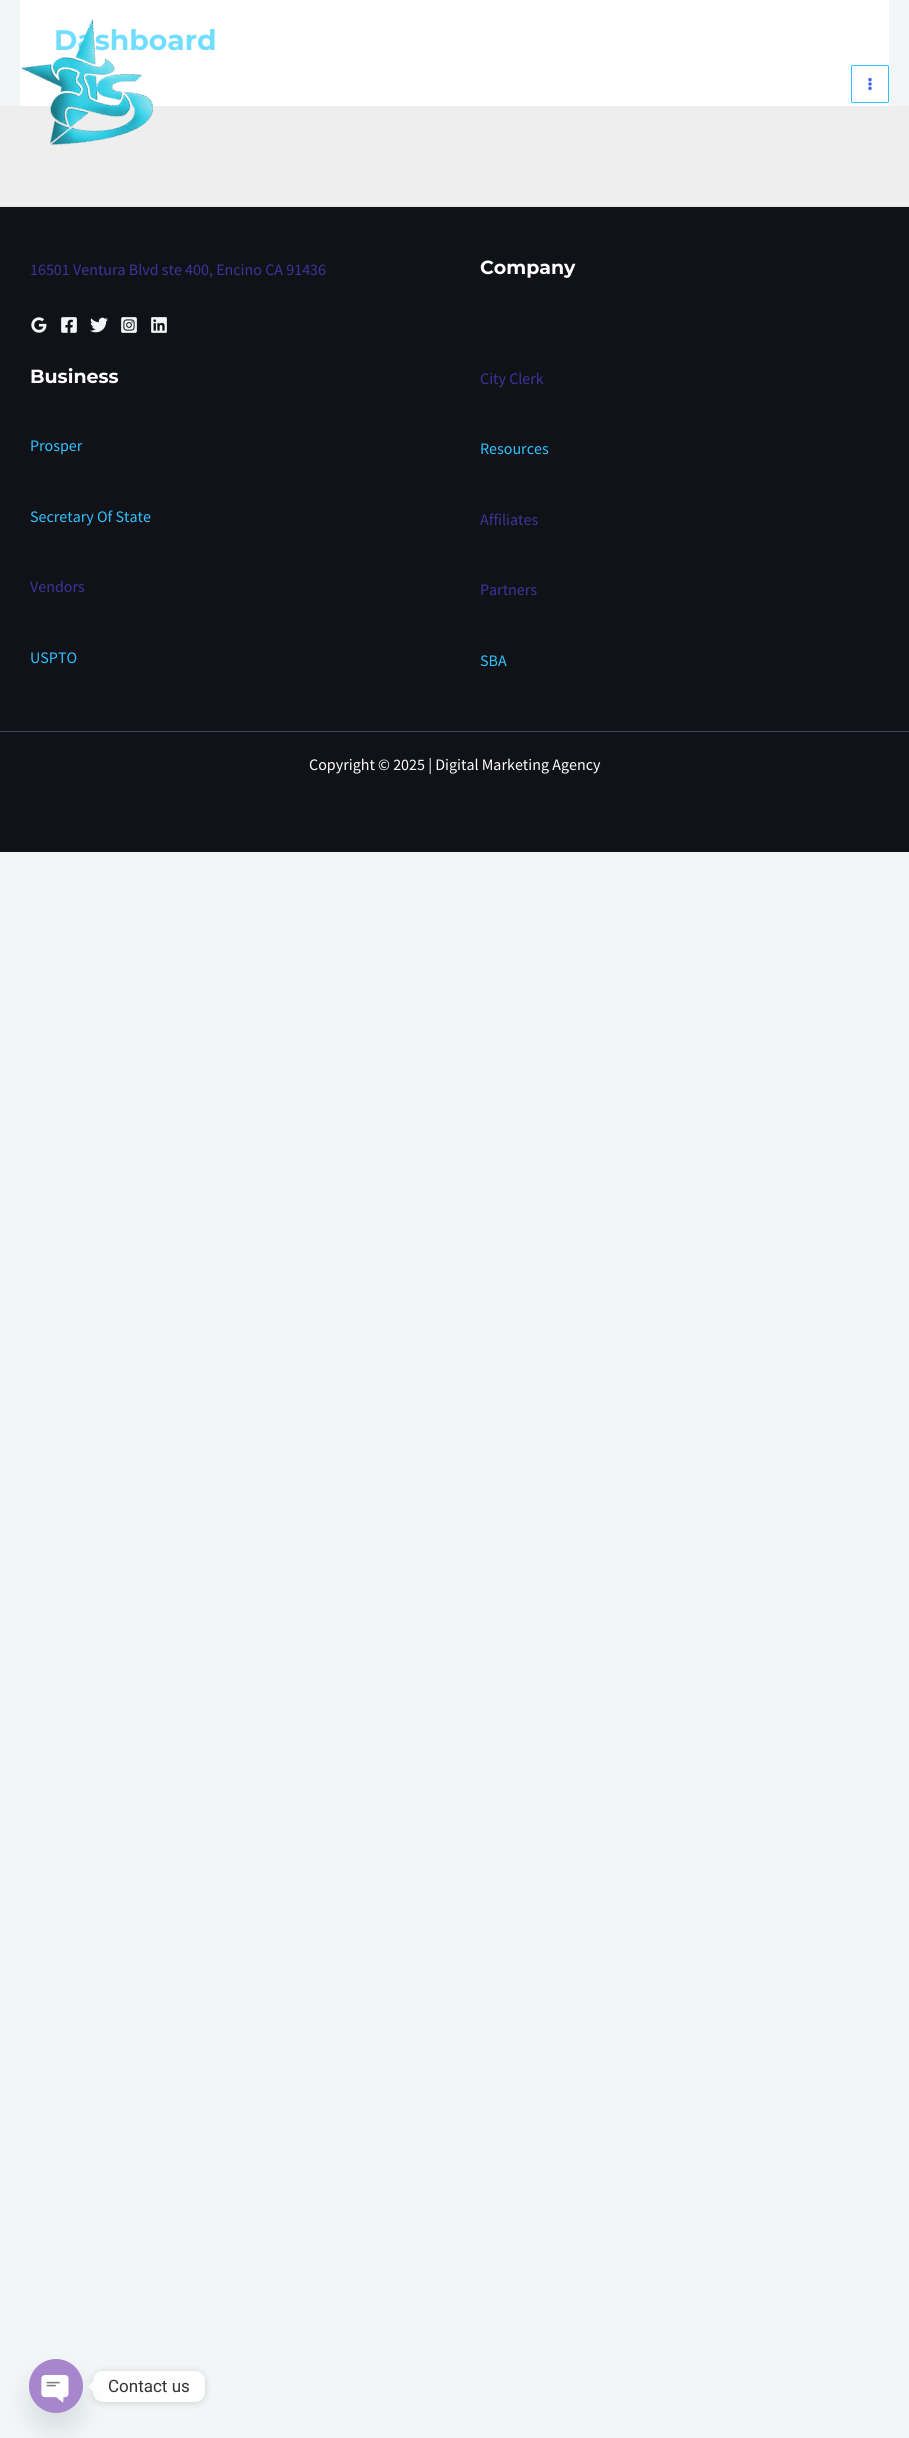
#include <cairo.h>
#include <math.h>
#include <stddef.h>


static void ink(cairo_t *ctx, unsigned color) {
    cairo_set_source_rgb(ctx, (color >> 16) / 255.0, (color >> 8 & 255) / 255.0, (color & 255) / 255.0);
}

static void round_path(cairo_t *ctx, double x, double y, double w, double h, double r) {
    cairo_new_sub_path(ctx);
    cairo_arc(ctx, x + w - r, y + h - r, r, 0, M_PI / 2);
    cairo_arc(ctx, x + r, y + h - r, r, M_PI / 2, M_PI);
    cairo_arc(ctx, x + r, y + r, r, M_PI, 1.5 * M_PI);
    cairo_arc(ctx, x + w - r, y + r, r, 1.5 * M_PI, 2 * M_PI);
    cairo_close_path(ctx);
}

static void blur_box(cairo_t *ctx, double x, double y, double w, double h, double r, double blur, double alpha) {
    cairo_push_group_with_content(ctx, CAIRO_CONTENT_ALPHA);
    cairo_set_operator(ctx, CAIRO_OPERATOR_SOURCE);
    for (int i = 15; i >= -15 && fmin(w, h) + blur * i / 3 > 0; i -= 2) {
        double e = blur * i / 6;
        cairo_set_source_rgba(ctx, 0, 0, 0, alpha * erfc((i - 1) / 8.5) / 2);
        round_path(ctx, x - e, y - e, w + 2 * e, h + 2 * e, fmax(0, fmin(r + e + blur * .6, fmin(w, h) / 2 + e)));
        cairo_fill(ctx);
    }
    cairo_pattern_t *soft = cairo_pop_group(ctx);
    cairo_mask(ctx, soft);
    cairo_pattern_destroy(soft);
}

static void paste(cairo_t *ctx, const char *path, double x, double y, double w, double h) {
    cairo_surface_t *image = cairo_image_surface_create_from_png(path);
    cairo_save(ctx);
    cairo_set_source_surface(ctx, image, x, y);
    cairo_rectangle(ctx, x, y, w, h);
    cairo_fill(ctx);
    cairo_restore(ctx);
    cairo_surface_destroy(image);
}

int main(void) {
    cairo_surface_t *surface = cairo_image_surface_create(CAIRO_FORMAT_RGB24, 909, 2438);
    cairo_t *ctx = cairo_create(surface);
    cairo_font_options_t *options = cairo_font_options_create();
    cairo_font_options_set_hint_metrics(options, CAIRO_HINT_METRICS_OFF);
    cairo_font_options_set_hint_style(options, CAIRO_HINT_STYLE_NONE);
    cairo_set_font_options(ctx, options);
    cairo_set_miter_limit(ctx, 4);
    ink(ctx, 0xF3F6F6);
    cairo_paint(ctx);
    ink(ctx, 0xFFFFFF);
    cairo_rectangle(ctx, 20, 0, 869, 106);
    cairo_fill(ctx);
    cairo_select_font_face(ctx, "Montserrat Thin", CAIRO_FONT_SLANT_NORMAL, CAIRO_FONT_WEIGHT_NORMAL);
    cairo_set_font_size(ctx, 28.25);
    ink(ctx, 0x71DEFF);
    cairo_move_to(ctx, 54, 50);
    cairo_show_text(ctx, "Dashboard");
    ink(ctx, 0xEEEEEE);
    cairo_rectangle(ctx, 0, 106, 909, 100);
    cairo_fill(ctx);
    paste(ctx, "media/1.png", 20, 19, 134, 127);
    round_path(ctx, 851.5, 65.5, 37, 37, 1.5);
    ink(ctx, 0x2FC1FF);
    cairo_set_line_width(ctx, 1);
    cairo_stroke(ctx);
    paste(ctx, "media/2.png", 868, 77, 4, 14);
    ink(ctx, 0x101218);
    cairo_rectangle(ctx, 0, 207, 909, 524);
    cairo_fill(ctx);
    ink(ctx, 0xE6E6E6);
    cairo_rectangle(ctx, 0, 206, 909, 1);
    cairo_fill(ctx);
    cairo_select_font_face(ctx, "Source Sans Pro", CAIRO_FONT_SLANT_NORMAL, CAIRO_FONT_WEIGHT_NORMAL);
    cairo_set_font_size(ctx, 16);
    ink(ctx, 0x41319A);
    cairo_move_to(ctx, 30, 275);
    cairo_show_text(ctx, "16501 Ventura Blvd ste 400, Encino CA 91436");
    paste(ctx, "media/3.png", 31, 317, 16, 16);
    paste(ctx, "media/4.png", 61, 317, 16, 16);
    paste(ctx, "media/5.png", 90, 317, 18, 16);
    paste(ctx, "media/6.png", 121, 317, 16, 16);
    paste(ctx, "media/7.png", 151, 317, 16, 16);
    cairo_select_font_face(ctx, "Montserrat Thin", CAIRO_FONT_SLANT_NORMAL, CAIRO_FONT_WEIGHT_NORMAL);
    cairo_set_font_size(ctx, 19);
    ink(ctx, 0xFFFFFF);
    cairo_move_to(ctx, 480, 274);
    cairo_show_text(ctx, "Company");
    cairo_move_to(ctx, 30, 383);
    cairo_show_text(ctx, "Business");
    cairo_select_font_face(ctx, "Source Sans Pro", CAIRO_FONT_SLANT_NORMAL, CAIRO_FONT_WEIGHT_NORMAL);
    cairo_set_font_size(ctx, 16);
    ink(ctx, 0x2FC1FF);
    cairo_move_to(ctx, 30, 451);
    cairo_show_text(ctx, "Prosper");
    cairo_move_to(ctx, 30, 522);
    cairo_show_text(ctx, "Secretary Of State");
    ink(ctx, 0x41319A);
    cairo_move_to(ctx, 30, 592);
    cairo_show_text(ctx, "Vendors");
    ink(ctx, 0x2FC1FF);
    cairo_move_to(ctx, 30, 663);
    cairo_show_text(ctx, "USPTO");
    ink(ctx, 0x41319A);
    cairo_move_to(ctx, 480, 384);
    cairo_show_text(ctx, "City Clerk");
    ink(ctx, 0x2FC1FF);
    cairo_move_to(ctx, 480, 454);
    cairo_show_text(ctx, "Resources");
    ink(ctx, 0x41319A);
    cairo_move_to(ctx, 480, 525);
    cairo_show_text(ctx, "Affiliates");
    cairo_move_to(ctx, 480, 595);
    cairo_show_text(ctx, "Partners");
    ink(ctx, 0x2FC1FF);
    cairo_move_to(ctx, 480, 666);
    cairo_show_text(ctx, "SBA");
    ink(ctx, 0x101218);
    cairo_rectangle(ctx, 0, 732, 909, 120);
    cairo_fill(ctx);
    ink(ctx, 0x3F4465);
    cairo_rectangle(ctx, 0, 731, 909, 1);
    cairo_fill(ctx);
    ink(ctx, 0xFFFFFF);
    cairo_move_to(ctx, 309, 770);
    cairo_show_text(ctx, "Copyright © 2025 | Digital Marketing Agency");
    ink(ctx, 0x000000);
    blur_box(ctx, 93, 2372, 112, 31, 10, 4, 0.15);
    ink(ctx, 0xFFFFFF);
    round_path(ctx, 93, 2371, 112, 31, 10);
    cairo_fill(ctx);
    cairo_new_path(ctx);
    cairo_move_to(ctx, 93, 2381.5);
    cairo_line_to(ctx, 93, 2391.5);
    cairo_line_to(ctx, 88, 2386.5);
    cairo_close_path(ctx);
    cairo_fill(ctx);
    ink(ctx, 0x49687E);
    blur_box(ctx, 29, 2375, 54, 54, 27, 12, 0.16);
    paste(ctx, "media/8.png", 29, 2359, 54, 54);
    cairo_select_font_face(ctx, "Roboto", CAIRO_FONT_SLANT_NORMAL, CAIRO_FONT_WEIGHT_NORMAL);
    cairo_set_font_size(ctx, 17);
    ink(ctx, 0x333333);
    cairo_move_to(ctx, 108, 2392);
    cairo_show_text(ctx, "Contact us");
    cairo_surface_write_to_png(surface, "image.png");
    cairo_font_options_destroy(options);
    cairo_destroy(ctx);
    cairo_surface_destroy(surface);
    return 0;
}
